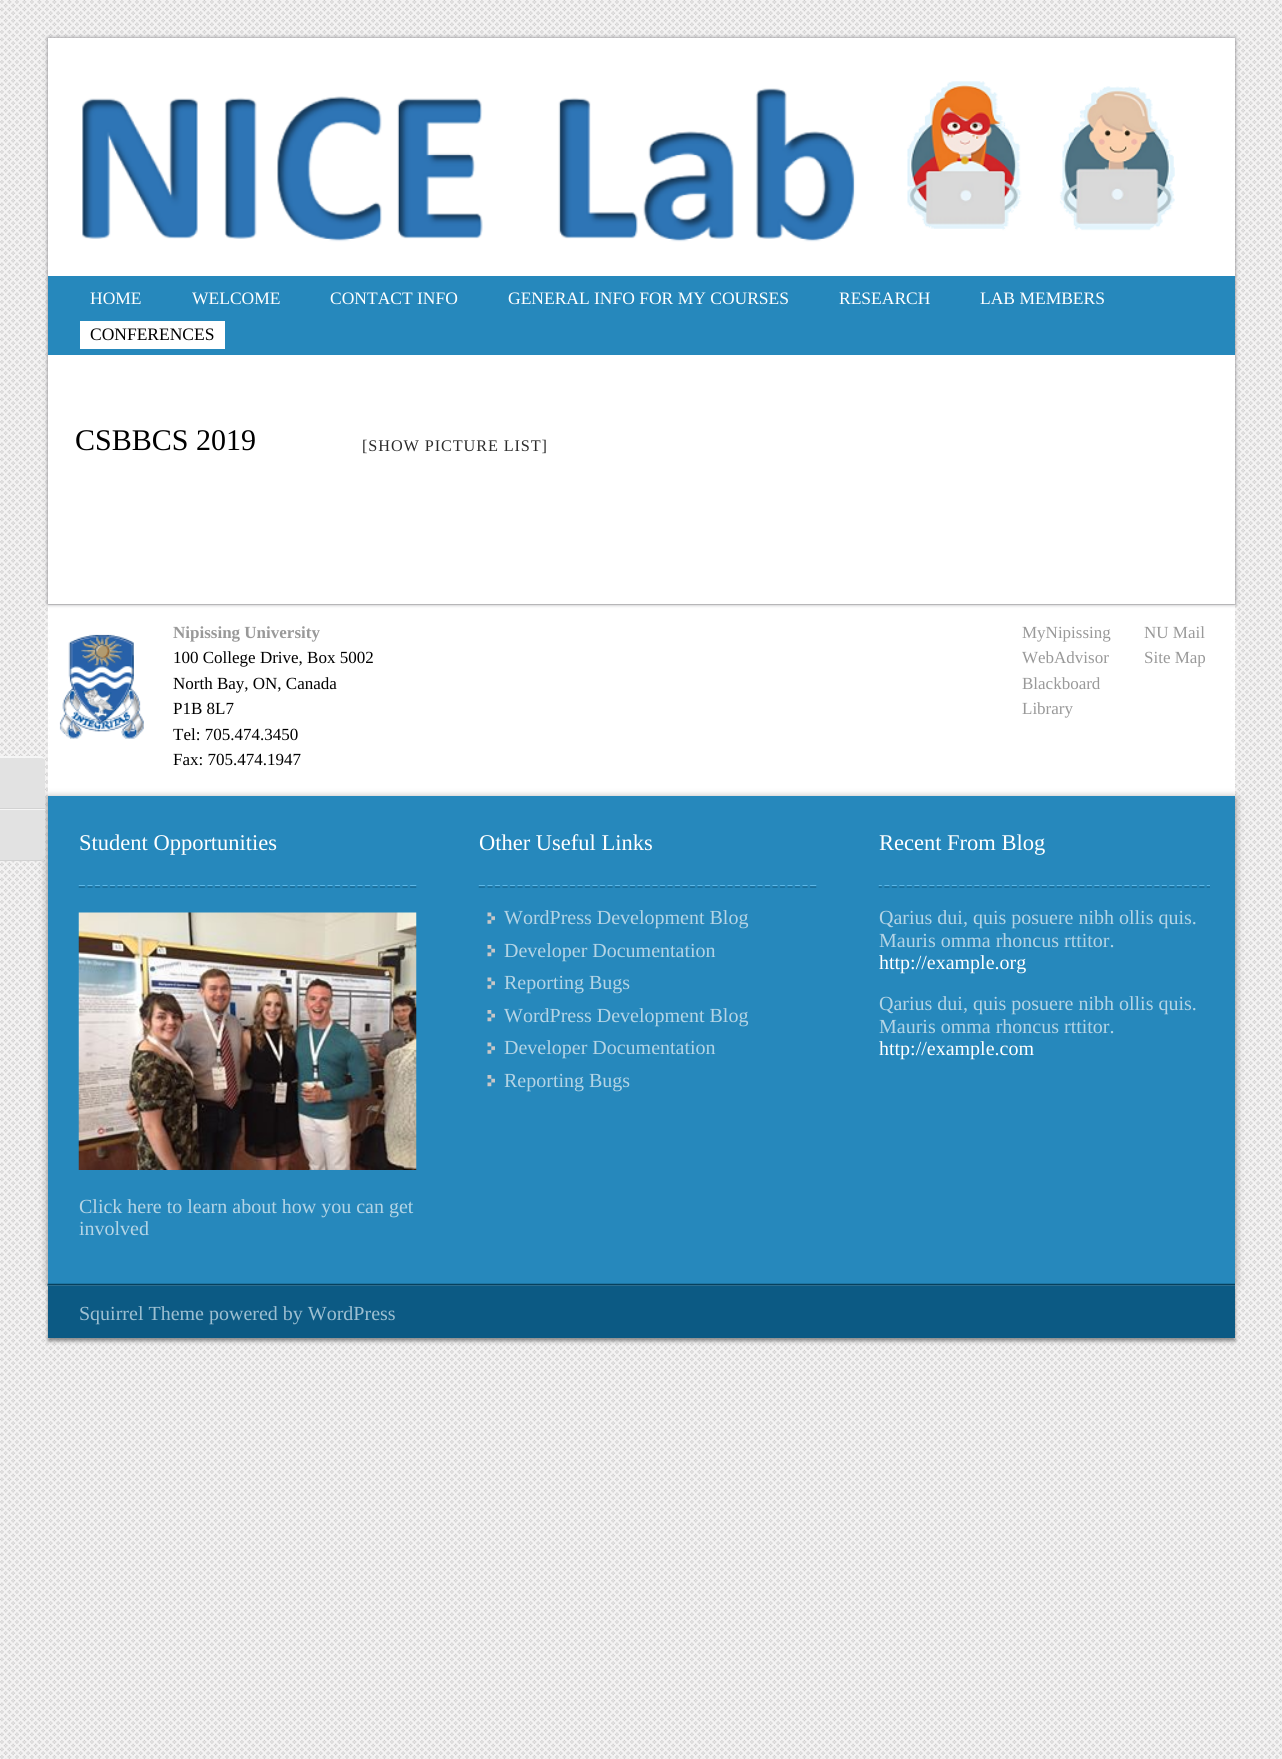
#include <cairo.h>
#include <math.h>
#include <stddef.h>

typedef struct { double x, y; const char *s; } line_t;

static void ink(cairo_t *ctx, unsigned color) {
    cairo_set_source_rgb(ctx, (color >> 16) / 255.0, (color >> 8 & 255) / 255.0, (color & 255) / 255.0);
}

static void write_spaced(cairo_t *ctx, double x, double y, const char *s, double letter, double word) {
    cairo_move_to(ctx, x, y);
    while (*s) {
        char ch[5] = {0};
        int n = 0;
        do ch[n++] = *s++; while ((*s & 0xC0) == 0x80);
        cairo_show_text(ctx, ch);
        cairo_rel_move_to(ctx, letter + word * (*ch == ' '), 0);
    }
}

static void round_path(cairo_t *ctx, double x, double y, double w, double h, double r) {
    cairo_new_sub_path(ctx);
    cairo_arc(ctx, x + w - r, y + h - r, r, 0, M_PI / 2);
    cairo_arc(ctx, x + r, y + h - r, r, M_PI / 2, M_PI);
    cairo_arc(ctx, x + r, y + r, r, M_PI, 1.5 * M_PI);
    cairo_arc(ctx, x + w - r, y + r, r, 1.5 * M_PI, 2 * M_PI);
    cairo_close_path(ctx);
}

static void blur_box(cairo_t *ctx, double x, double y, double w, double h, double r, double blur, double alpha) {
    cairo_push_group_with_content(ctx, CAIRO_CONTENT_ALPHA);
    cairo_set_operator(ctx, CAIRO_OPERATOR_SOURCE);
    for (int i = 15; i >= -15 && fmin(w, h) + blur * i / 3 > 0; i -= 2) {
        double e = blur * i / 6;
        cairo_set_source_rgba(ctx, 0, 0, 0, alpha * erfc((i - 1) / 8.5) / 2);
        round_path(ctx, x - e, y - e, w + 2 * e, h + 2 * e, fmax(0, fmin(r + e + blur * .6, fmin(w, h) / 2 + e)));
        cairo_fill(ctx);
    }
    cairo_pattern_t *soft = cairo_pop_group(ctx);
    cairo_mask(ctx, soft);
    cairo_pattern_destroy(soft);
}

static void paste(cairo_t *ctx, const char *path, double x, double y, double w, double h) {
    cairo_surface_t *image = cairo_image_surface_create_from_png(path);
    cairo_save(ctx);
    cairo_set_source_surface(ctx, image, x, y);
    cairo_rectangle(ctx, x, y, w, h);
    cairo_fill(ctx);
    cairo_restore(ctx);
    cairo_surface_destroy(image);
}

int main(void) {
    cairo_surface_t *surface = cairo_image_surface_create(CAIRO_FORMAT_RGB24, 1282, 1759);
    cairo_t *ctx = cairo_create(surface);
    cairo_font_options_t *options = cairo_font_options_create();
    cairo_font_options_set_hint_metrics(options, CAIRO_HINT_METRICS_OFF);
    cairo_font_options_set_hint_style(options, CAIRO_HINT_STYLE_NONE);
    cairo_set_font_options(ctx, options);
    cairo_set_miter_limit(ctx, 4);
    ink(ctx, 0xFFFFFF);
    cairo_paint(ctx);
    paste(ctx, "media/1.png", 0, 0, 1282, 1759);
    ink(ctx, 0xFFFFFF);
    cairo_rectangle(ctx, 48, 605, 1187, 191);
    cairo_fill(ctx);
    ink(ctx, 0x888888);
    blur_box(ctx, 48, 798, 1187, 487, 0, 4, 1);
    ink(ctx, 0xE2E2E2);
    cairo_new_path(ctx);
    cairo_move_to(ctx, 0, 756);
    cairo_line_to(ctx, 40, 756);
    cairo_curve_to(ctx, 43, 756, 45, 758, 45, 761);
    cairo_line_to(ctx, 45, 809);
    cairo_line_to(ctx, 0, 809);
    cairo_close_path(ctx);
    cairo_fill(ctx);
    ink(ctx, 0xF5F5F5);
    cairo_new_path(ctx);
    cairo_move_to(ctx, 0, 758);
    cairo_line_to(ctx, 40, 758);
    cairo_curve_to(ctx, 43, 758, 45, 759, 45, 761);
    cairo_curve_to(ctx, 45, 759, 44, 757, 42, 756);
    cairo_line_to(ctx, 0, 756);
    cairo_close_path(ctx);
    cairo_fill(ctx);
    ink(ctx, 0xD2D2D2);
    cairo_rectangle(ctx, 0, 808, 45, 1);
    cairo_fill(ctx);
    ink(ctx, 0xE2E2E2);
    cairo_new_path(ctx);
    cairo_move_to(ctx, 0, 809);
    cairo_line_to(ctx, 45, 809);
    cairo_line_to(ctx, 45, 856);
    cairo_curve_to(ctx, 45, 859, 43, 861, 40, 861);
    cairo_line_to(ctx, 0, 861);
    cairo_close_path(ctx);
    cairo_fill(ctx);
    ink(ctx, 0xF5F5F5);
    cairo_rectangle(ctx, 0, 809, 45, 1);
    cairo_fill(ctx);
    ink(ctx, 0xD2D2D2);
    cairo_new_path(ctx);
    cairo_move_to(ctx, 0, 860);
    cairo_line_to(ctx, 0, 861);
    cairo_line_to(ctx, 40, 861);
    cairo_curve_to(ctx, 43, 861, 45, 859, 45, 856);
    cairo_curve_to(ctx, 45, 858, 43, 860, 40, 860);
    cairo_close_path(ctx);
    cairo_fill(ctx);
    ink(ctx, 0xDDDDDD);
    cairo_rectangle(ctx, 48, 604, 1187, 1);
    cairo_fill(ctx);
    ink(ctx, 0x818085);
    blur_box(ctx, 48, 38, 1187, 566, 0, 2, 1);
    ink(ctx, 0xFFFFFF);
    cairo_rectangle(ctx, 48, 38, 1187, 566);
    cairo_fill(ctx);
    paste(ctx, "media/2.png", 82, 81, 1093, 161);
    ink(ctx, 0x2688BC);
    cairo_rectangle(ctx, 48, 276, 1187, 79);
    cairo_fill(ctx);
    cairo_select_font_face(ctx, "Liberation Serif", CAIRO_FONT_SLANT_NORMAL, CAIRO_FONT_WEIGHT_NORMAL);
    cairo_set_font_size(ctx, 17.5);
    ink(ctx, 0xFFFFFF);
    {
        static const line_t items[] = {
            {90, 304, "HOME"},
            {192, 304, "WELCOME"},
            {330, 304, "CONTACT INFO"},
            {508, 304, "GENERAL INFO FOR MY COURSES"},
            {839, 304, "RESEARCH"},
            {980, 304, "LAB MEMBERS"},
        };
        for (size_t i = 0; i < sizeof items / sizeof *items; i++) {
            cairo_move_to(ctx, items[i].x, items[i].y);
            cairo_show_text(ctx, items[i].s);
        }
    }
    cairo_rectangle(ctx, 80, 321, 145, 28);
    cairo_fill(ctx);
    ink(ctx, 0x000000);
    cairo_move_to(ctx, 90, 340);
    cairo_show_text(ctx, "CONFERENCES");
    cairo_set_font_size(ctx, 30);
    cairo_move_to(ctx, 75, 450);
    cairo_show_text(ctx, "CSBBCS 2019");
    cairo_set_font_size(ctx, 16.25);
    ink(ctx, 0x2C2C2C);
    write_spaced(ctx, 362, 451, "[SHOW PICTURE LIST]", 0.9, 0);
    paste(ctx, "media/3.png", 59, 634, 85, 105);
    cairo_select_font_face(ctx, "Liberation Serif", CAIRO_FONT_SLANT_NORMAL, CAIRO_FONT_WEIGHT_BOLD);
    cairo_set_font_size(ctx, 17);
    ink(ctx, 0x999999);
    cairo_move_to(ctx, 173, 638);
    cairo_show_text(ctx, "Nipissing University");
    cairo_select_font_face(ctx, "Liberation Serif", CAIRO_FONT_SLANT_NORMAL, CAIRO_FONT_WEIGHT_NORMAL);
    ink(ctx, 0x000000);
    {
        static const line_t items[] = {
            {173, 663, "100 College Drive, Box 5002"},
            {173, 689, "North Bay, ON, Canada"},
            {173, 714, "P1B 8L7"},
            {173, 740, "Tel: 705.474.3450"},
            {173, 765, "Fax: 705.474.1947"},
        };
        for (size_t i = 0; i < sizeof items / sizeof *items; i++) {
            cairo_move_to(ctx, items[i].x, items[i].y);
            cairo_show_text(ctx, items[i].s);
        }
    }
    ink(ctx, 0x999999);
    {
        static const line_t items[] = {
            {1022, 638, "MyNipissing"},
            {1022, 663, "WebAdvisor"},
            {1022, 689, "Blackboard"},
            {1022, 714, "Library"},
            {1144, 638, "NU Mail"},
            {1144, 663, "Site Map"},
        };
        for (size_t i = 0; i < sizeof items / sizeof *items; i++) {
            cairo_move_to(ctx, items[i].x, items[i].y);
            cairo_show_text(ctx, items[i].s);
        }
    }
    ink(ctx, 0x2688BC);
    cairo_rectangle(ctx, 48, 796, 1187, 488);
    cairo_fill(ctx);
    paste(ctx, "media/4.png", 78, 885, 339, 3);
    cairo_set_font_size(ctx, 22.5);
    ink(ctx, 0xFFFFFF);
    cairo_move_to(ctx, 79, 850);
    cairo_show_text(ctx, "Student Opportunities");
    paste(ctx, "media/5.png", 78, 912, 339, 258);
    cairo_set_font_size(ctx, 20);
    ink(ctx, 0xB4D4E5);
    cairo_move_to(ctx, 79, 1213);
    cairo_show_text(ctx, "Click here to learn about how you can get");
    cairo_move_to(ctx, 79, 1235);
    cairo_show_text(ctx, "involved");
    paste(ctx, "media/6.png", 478, 885, 339, 3);
    cairo_set_font_size(ctx, 22.5);
    ink(ctx, 0xFFFFFF);
    cairo_move_to(ctx, 479, 850);
    cairo_show_text(ctx, "Other Useful Links");
    paste(ctx, "media/7.png", 487, 912, 8, 12);
    cairo_set_font_size(ctx, 20);
    ink(ctx, 0xB4D4E5);
    cairo_move_to(ctx, 504, 924);
    cairo_show_text(ctx, "WordPress Development Blog");
    paste(ctx, "media/8.png", 487, 945, 8, 12);
    cairo_move_to(ctx, 504, 957);
    cairo_show_text(ctx, "Developer Documentation");
    paste(ctx, "media/7.png", 487, 977, 8, 12);
    cairo_move_to(ctx, 504, 989);
    cairo_show_text(ctx, "Reporting Bugs");
    paste(ctx, "media/8.png", 487, 1010, 8, 12);
    cairo_move_to(ctx, 504, 1022);
    cairo_show_text(ctx, "WordPress Development Blog");
    paste(ctx, "media/7.png", 487, 1042, 8, 12);
    cairo_move_to(ctx, 504, 1054);
    cairo_show_text(ctx, "Developer Documentation");
    paste(ctx, "media/8.png", 487, 1075, 8, 12);
    cairo_move_to(ctx, 504, 1087);
    cairo_show_text(ctx, "Reporting Bugs");
    paste(ctx, "media/9.png", 878, 885, 332, 3);
    cairo_set_font_size(ctx, 22.5);
    ink(ctx, 0xFFFFFF);
    cairo_move_to(ctx, 879, 850);
    cairo_show_text(ctx, "Recent From Blog");
    cairo_set_font_size(ctx, 20);
    ink(ctx, 0xB4D4E5);
    cairo_move_to(ctx, 879, 924);
    cairo_show_text(ctx, "Qarius dui, quis posuere nibh ollis quis.");
    cairo_move_to(ctx, 879, 947);
    cairo_show_text(ctx, "Mauris omma rhoncus rttitor.");
    ink(ctx, 0xFFFFFF);
    cairo_move_to(ctx, 879, 969);
    cairo_show_text(ctx, "http://example.org");
    ink(ctx, 0xB4D4E5);
    cairo_move_to(ctx, 879, 1010);
    cairo_show_text(ctx, "Qarius dui, quis posuere nibh ollis quis.");
    cairo_move_to(ctx, 879, 1033);
    cairo_show_text(ctx, "Mauris omma rhoncus rttitor.");
    ink(ctx, 0xFFFFFF);
    cairo_move_to(ctx, 879, 1055);
    cairo_show_text(ctx, "http://example.com");
    paste(ctx, "media/10.png", 47, 1283, 1188, 4);
    ink(ctx, 0x888888);
    blur_box(ctx, 48, 1290, 1187, 51, 0, 2, 1);
    ink(ctx, 0x0C5A84);
    cairo_rectangle(ctx, 48, 1286, 1187, 52);
    cairo_fill(ctx);
    ink(ctx, 0x9DBFD1);
    cairo_move_to(ctx, 79, 1320);
    cairo_show_text(ctx, "Squirrel Theme powered by WordPress");
    cairo_surface_write_to_png(surface, "image.png");
    cairo_font_options_destroy(options);
    cairo_destroy(ctx);
    cairo_surface_destroy(surface);
    return 0;
}
